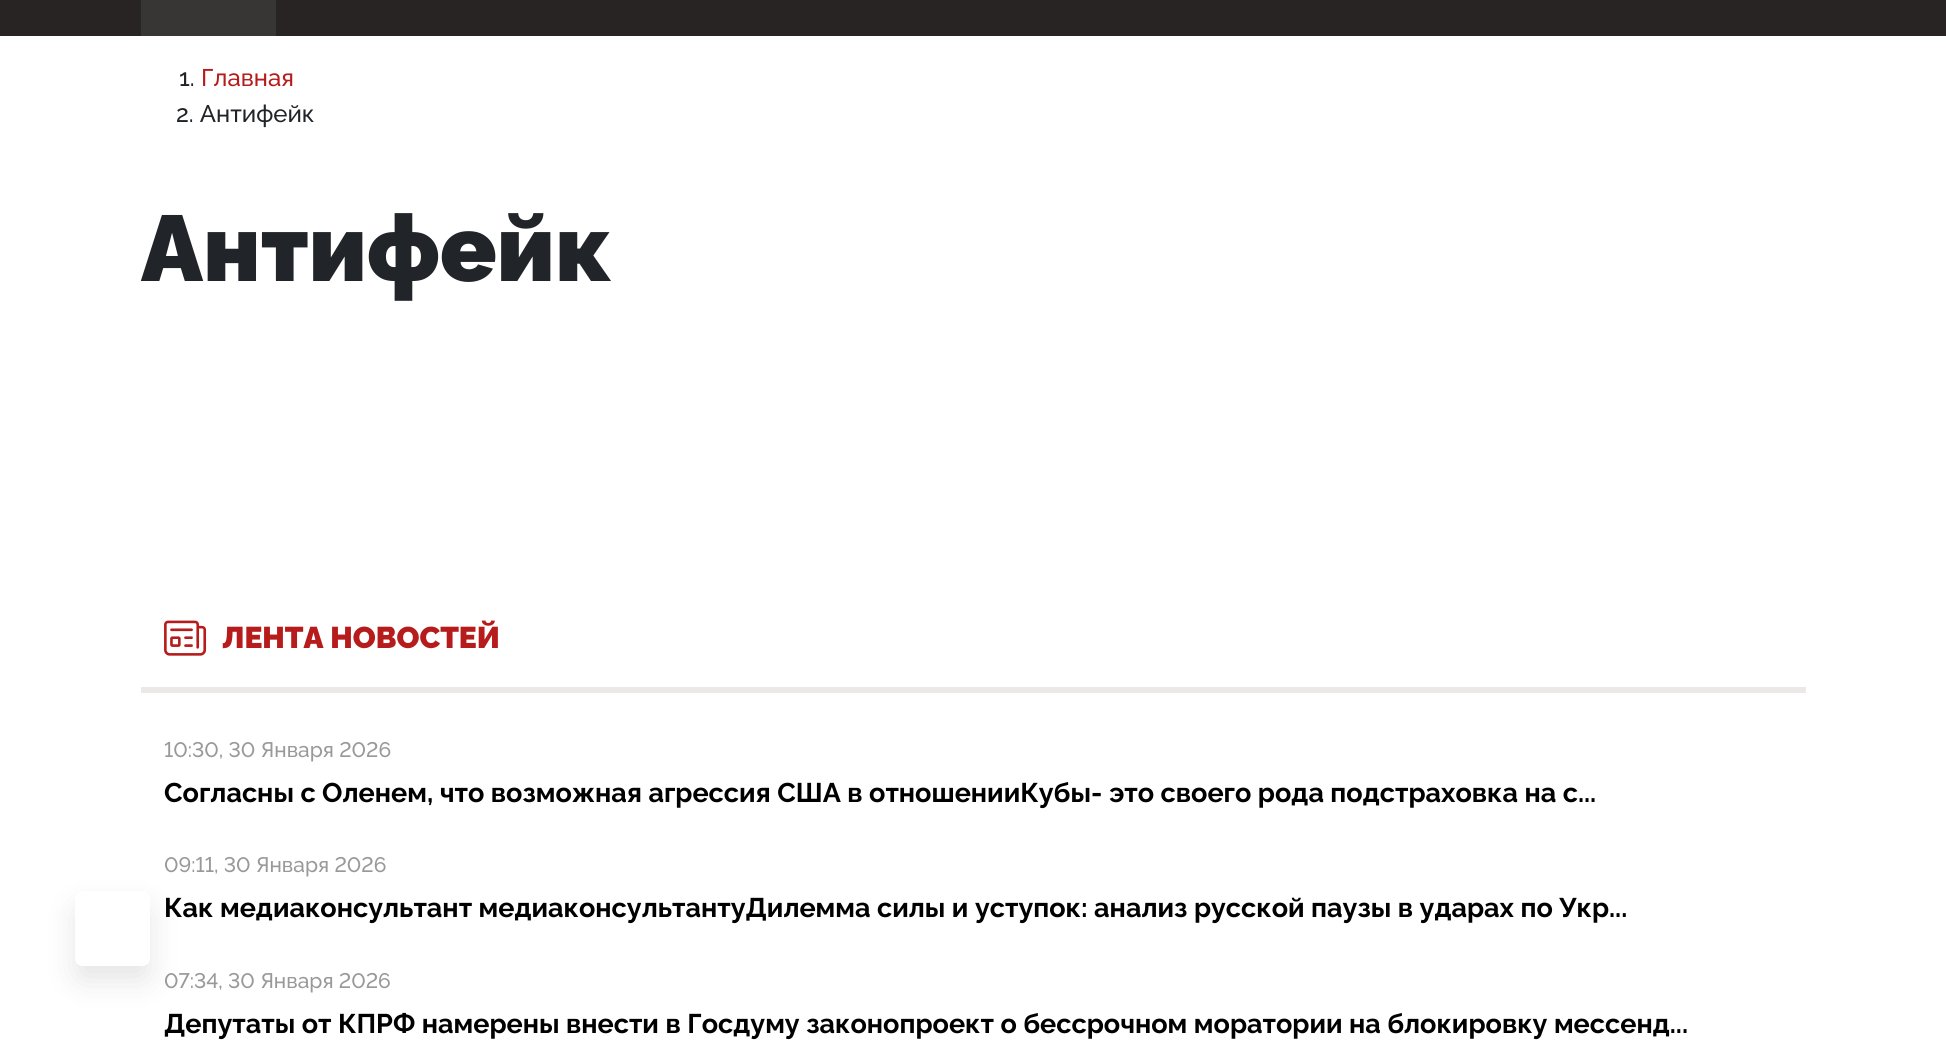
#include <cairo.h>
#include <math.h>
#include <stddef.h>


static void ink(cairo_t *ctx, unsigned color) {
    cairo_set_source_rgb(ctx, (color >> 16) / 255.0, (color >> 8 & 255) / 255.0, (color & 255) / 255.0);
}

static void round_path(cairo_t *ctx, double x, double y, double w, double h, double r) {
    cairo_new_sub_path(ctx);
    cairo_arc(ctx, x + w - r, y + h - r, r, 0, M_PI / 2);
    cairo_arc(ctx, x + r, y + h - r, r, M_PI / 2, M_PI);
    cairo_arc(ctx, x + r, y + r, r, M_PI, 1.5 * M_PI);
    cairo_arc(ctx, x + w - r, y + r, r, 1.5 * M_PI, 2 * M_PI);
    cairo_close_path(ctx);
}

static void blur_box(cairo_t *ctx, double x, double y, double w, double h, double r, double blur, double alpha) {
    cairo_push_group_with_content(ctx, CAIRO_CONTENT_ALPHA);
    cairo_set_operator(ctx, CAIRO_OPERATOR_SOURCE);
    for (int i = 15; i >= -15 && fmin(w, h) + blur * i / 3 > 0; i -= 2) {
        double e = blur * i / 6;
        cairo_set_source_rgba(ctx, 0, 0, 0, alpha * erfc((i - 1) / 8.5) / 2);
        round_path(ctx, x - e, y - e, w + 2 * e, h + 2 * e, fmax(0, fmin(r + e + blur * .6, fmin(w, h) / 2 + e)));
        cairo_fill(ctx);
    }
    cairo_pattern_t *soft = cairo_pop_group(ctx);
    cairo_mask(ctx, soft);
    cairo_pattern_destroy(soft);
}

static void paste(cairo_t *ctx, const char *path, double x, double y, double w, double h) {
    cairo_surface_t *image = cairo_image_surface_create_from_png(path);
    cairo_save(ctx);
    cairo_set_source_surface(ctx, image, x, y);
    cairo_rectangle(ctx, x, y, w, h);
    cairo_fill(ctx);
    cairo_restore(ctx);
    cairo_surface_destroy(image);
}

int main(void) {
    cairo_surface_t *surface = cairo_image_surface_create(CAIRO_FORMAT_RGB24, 1946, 1041);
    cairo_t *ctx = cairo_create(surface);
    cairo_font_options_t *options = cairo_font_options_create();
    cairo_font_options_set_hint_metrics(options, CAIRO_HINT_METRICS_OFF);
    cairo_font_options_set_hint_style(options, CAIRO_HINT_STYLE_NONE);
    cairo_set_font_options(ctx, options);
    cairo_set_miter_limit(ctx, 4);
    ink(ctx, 0xFFFFFF);
    cairo_paint(ctx);
    cairo_save(ctx);
    cairo_set_fill_rule(ctx, CAIRO_FILL_RULE_EVEN_ODD);
    cairo_new_path(ctx);
    cairo_move_to(ctx, 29, 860);
    cairo_line_to(ctx, 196, 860);
    cairo_line_to(ctx, 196, 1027);
    cairo_line_to(ctx, 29, 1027);
    cairo_close_path(ctx);
    cairo_move_to(ctx, 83, 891);
    cairo_line_to(ctx, 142, 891);
    cairo_curve_to(ctx, 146.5, 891, 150, 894.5, 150, 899);
    cairo_line_to(ctx, 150, 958);
    cairo_curve_to(ctx, 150, 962.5, 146.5, 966, 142, 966);
    cairo_line_to(ctx, 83, 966);
    cairo_curve_to(ctx, 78.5, 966, 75, 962.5, 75, 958);
    cairo_line_to(ctx, 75, 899);
    cairo_curve_to(ctx, 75, 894.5, 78.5, 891, 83, 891);
    cairo_close_path(ctx);
    cairo_clip(ctx);
    ink(ctx, 0x000000);
    blur_box(ctx, 75, 906, 75, 75, 8, 15, 0.1);
    cairo_restore(ctx);
    ink(ctx, 0x282424);
    cairo_rectangle(ctx, 0, 0, 1946, 36);
    cairo_fill(ctx);
    ink(ctx, 0x383535);
    cairo_rectangle(ctx, 141, 0, 135, 36);
    cairo_fill(ctx);
    cairo_select_font_face(ctx, "Raleway Medium", CAIRO_FONT_SLANT_NORMAL, CAIRO_FONT_WEIGHT_NORMAL);
    cairo_set_font_size(ctx, 24);
    ink(ctx, 0x212529);
    cairo_move_to(ctx, 179, 86);
    cairo_show_text(ctx, "1.");
    ink(ctx, 0xB71C1C);
    cairo_move_to(ctx, 201, 86);
    cairo_show_text(ctx, "Главная");
    ink(ctx, 0x212529);
    cairo_move_to(ctx, 176, 122);
    cairo_show_text(ctx, "2. Антифейк");
    cairo_select_font_face(ctx, "Raleway Black", CAIRO_FONT_SLANT_NORMAL, CAIRO_FONT_WEIGHT_NORMAL);
    cairo_set_font_size(ctx, 93);
    cairo_move_to(ctx, 141, 281);
    cairo_show_text(ctx, "Антифейк");
    ink(ctx, 0xECE8E8);
    cairo_rectangle(ctx, 141, 687, 1665, 6);
    cairo_fill(ctx);
    paste(ctx, "media/1.png", 164, 620, 43, 36);
    cairo_set_font_size(ctx, 30);
    ink(ctx, 0xB71C1C);
    cairo_move_to(ctx, 222, 648);
    cairo_show_text(ctx, "ЛЕНТА НОВОСТЕЙ");
    cairo_select_font_face(ctx, "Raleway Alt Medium", CAIRO_FONT_SLANT_NORMAL, CAIRO_FONT_WEIGHT_NORMAL);
    cairo_set_font_size(ctx, 21);
    ink(ctx, 0x999999);
    cairo_move_to(ctx, 164, 757);
    cairo_show_text(ctx, "10:30, 30 Января 2026");
    cairo_select_font_face(ctx, "Raleway", CAIRO_FONT_SLANT_NORMAL, CAIRO_FONT_WEIGHT_BOLD);
    cairo_set_font_size(ctx, 27);
    ink(ctx, 0x000000);
    cairo_move_to(ctx, 164, 802);
    cairo_show_text(ctx, "Согласны с Оленем, что возможная агрессия США в отношенииКубы- это своего рода подстраховка на с...");
    cairo_select_font_face(ctx, "Raleway Alt Medium", CAIRO_FONT_SLANT_NORMAL, CAIRO_FONT_WEIGHT_NORMAL);
    cairo_set_font_size(ctx, 21);
    ink(ctx, 0x999999);
    cairo_move_to(ctx, 164, 872);
    cairo_show_text(ctx, "09:11, 30 Января 2026");
    cairo_select_font_face(ctx, "Raleway", CAIRO_FONT_SLANT_NORMAL, CAIRO_FONT_WEIGHT_BOLD);
    cairo_set_font_size(ctx, 27);
    ink(ctx, 0x000000);
    cairo_move_to(ctx, 164, 917);
    cairo_show_text(ctx, "Как медиаконсультант медиаконсультантуДилемма силы и уступок: анализ русской паузы в ударах по Укр...");
    cairo_select_font_face(ctx, "Raleway Alt Medium", CAIRO_FONT_SLANT_NORMAL, CAIRO_FONT_WEIGHT_NORMAL);
    cairo_set_font_size(ctx, 21);
    ink(ctx, 0x999999);
    cairo_move_to(ctx, 164, 988);
    cairo_show_text(ctx, "07:34, 30 Января 2026");
    cairo_select_font_face(ctx, "Raleway", CAIRO_FONT_SLANT_NORMAL, CAIRO_FONT_WEIGHT_BOLD);
    cairo_set_font_size(ctx, 27);
    ink(ctx, 0x000000);
    cairo_move_to(ctx, 164, 1033);
    cairo_show_text(ctx, "Депутаты от КПРФ намерены внести в Госдуму законопроект о бессрочном моратории на блокировку мессенд...");
    cairo_surface_write_to_png(surface, "image.png");
    cairo_font_options_destroy(options);
    cairo_destroy(ctx);
    cairo_surface_destroy(surface);
    return 0;
}
